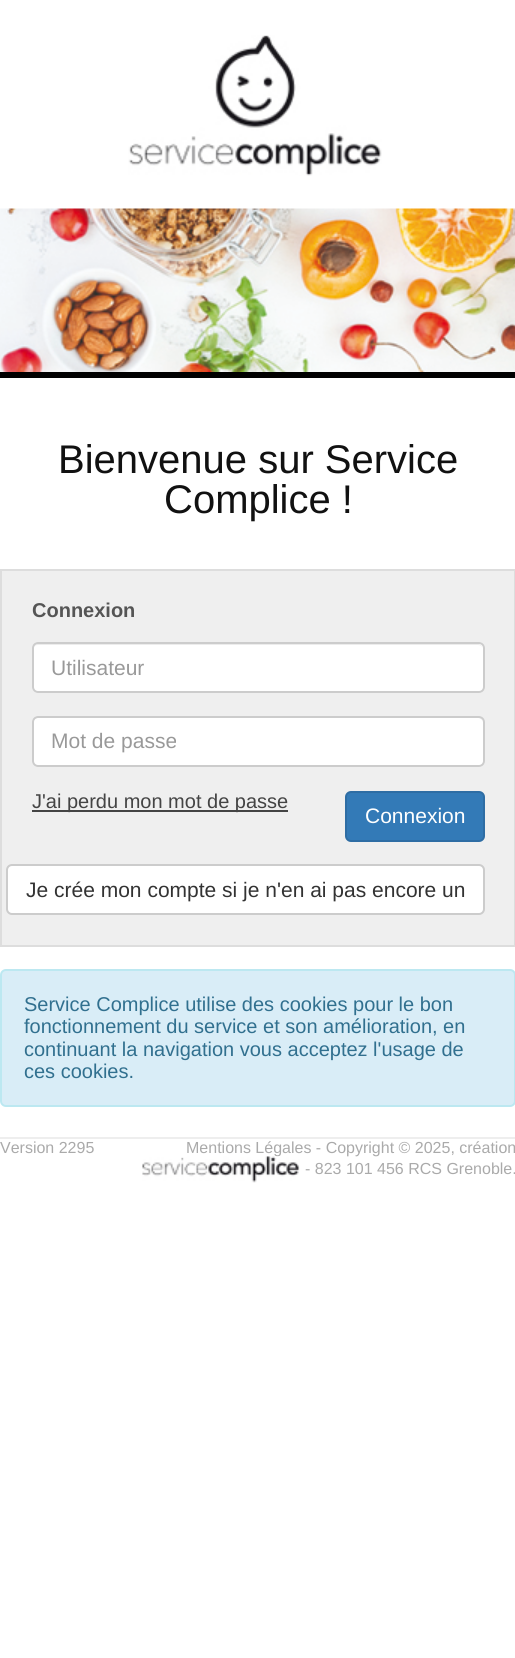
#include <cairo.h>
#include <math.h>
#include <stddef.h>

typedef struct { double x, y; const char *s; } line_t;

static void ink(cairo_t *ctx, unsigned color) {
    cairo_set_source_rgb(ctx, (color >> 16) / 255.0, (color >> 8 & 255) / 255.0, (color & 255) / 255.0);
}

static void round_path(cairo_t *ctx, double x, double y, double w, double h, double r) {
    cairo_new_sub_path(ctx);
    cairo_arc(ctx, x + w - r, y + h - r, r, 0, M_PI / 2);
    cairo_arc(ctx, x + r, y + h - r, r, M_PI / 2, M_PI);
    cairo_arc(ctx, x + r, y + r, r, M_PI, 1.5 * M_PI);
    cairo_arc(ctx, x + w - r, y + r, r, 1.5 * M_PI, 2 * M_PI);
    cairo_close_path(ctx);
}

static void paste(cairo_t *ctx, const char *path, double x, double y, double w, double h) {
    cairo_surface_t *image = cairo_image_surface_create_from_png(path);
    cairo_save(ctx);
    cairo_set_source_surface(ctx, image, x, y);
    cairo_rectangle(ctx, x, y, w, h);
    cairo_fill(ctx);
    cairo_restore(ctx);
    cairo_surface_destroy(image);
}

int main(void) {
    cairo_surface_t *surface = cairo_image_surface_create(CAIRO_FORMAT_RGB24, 515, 1658);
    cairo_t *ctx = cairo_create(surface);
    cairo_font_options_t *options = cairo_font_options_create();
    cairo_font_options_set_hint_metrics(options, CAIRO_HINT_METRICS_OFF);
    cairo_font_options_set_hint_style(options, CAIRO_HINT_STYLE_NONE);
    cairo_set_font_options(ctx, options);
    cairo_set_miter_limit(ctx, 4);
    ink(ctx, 0xFFFFFF);
    cairo_paint(ctx);
    paste(ctx, "media/1.png", 128, 35, 254, 141);
    paste(ctx, "media/2.png", 0, 208, 515, 164);
    ink(ctx, 0x000000);
    cairo_rectangle(ctx, 0, 372, 515, 6);
    cairo_fill(ctx);
    cairo_select_font_face(ctx, "Liberation Sans", CAIRO_FONT_SLANT_NORMAL, CAIRO_FONT_WEIGHT_NORMAL);
    cairo_set_font_size(ctx, 40);
    ink(ctx, 0x111111);
    cairo_move_to(ctx, 58, 473);
    cairo_show_text(ctx, "Bienvenue sur Service");
    cairo_move_to(ctx, 164, 513);
    cairo_show_text(ctx, "Complice !");
    ink(ctx, 0xEFEFEF);
    cairo_rectangle(ctx, 1, 570, 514, 376);
    cairo_fill_preserve(ctx);
    ink(ctx, 0xDDDDDD);
    cairo_stroke(ctx);
    cairo_select_font_face(ctx, "Liberation Sans", CAIRO_FONT_SLANT_NORMAL, CAIRO_FONT_WEIGHT_BOLD);
    cairo_set_font_size(ctx, 20);
    ink(ctx, 0x555555);
    cairo_move_to(ctx, 32, 617);
    cairo_show_text(ctx, "Connexion");
    ink(ctx, 0xFFFFFF);
    round_path(ctx, 32, 642, 453, 51, 6);
    cairo_fill(ctx);
    ink(ctx, 0xECECEC);
    cairo_new_path(ctx);
    cairo_move_to(ctx, 38, 645);
    cairo_line_to(ctx, 478, 645);
    cairo_curve_to(ctx, 481, 645, 483, 647, 483, 650);
    cairo_curve_to(ctx, 483, 647, 481, 644, 478, 644);
    cairo_line_to(ctx, 38, 644);
    cairo_curve_to(ctx, 35, 644, 33, 647, 33, 650);
    cairo_curve_to(ctx, 33, 647, 35, 645, 38, 645);
    cairo_close_path(ctx);
    cairo_fill(ctx);
    round_path(ctx, 33, 643, 451, 49, 5);
    ink(ctx, 0xCCCCCC);
    cairo_stroke(ctx);
    cairo_select_font_face(ctx, "Liberation Sans", CAIRO_FONT_SLANT_NORMAL, CAIRO_FONT_WEIGHT_NORMAL);
    cairo_set_font_size(ctx, 21);
    ink(ctx, 0x999999);
    cairo_move_to(ctx, 51, 675);
    cairo_show_text(ctx, "Utilisateur");
    ink(ctx, 0xFFFFFF);
    round_path(ctx, 32, 716, 453, 51, 6);
    cairo_fill(ctx);
    ink(ctx, 0xECECEC);
    cairo_new_path(ctx);
    cairo_move_to(ctx, 38, 718);
    cairo_line_to(ctx, 478, 718);
    cairo_curve_to(ctx, 481, 718, 483, 721, 483, 723);
    cairo_curve_to(ctx, 483, 720, 481, 717, 478, 717);
    cairo_line_to(ctx, 38, 717);
    cairo_curve_to(ctx, 35, 717, 33, 720, 33, 723);
    cairo_curve_to(ctx, 33, 721, 35, 718, 38, 718);
    cairo_close_path(ctx);
    cairo_fill(ctx);
    round_path(ctx, 33, 717, 451, 49, 5);
    ink(ctx, 0xCCCCCC);
    cairo_stroke(ctx);
    ink(ctx, 0x999999);
    cairo_move_to(ctx, 51, 748);
    cairo_show_text(ctx, "Mot de passe");
    ink(ctx, 0x444444);
    cairo_rectangle(ctx, 32, 810, 256, 2);
    cairo_fill(ctx);
    cairo_set_font_size(ctx, 20);
    cairo_move_to(ctx, 32, 808);
    cairo_show_text(ctx, "J'ai perdu mon mot de passe");
    ink(ctx, 0x337AB7);
    round_path(ctx, 346, 792, 138, 49, 5);
    cairo_fill_preserve(ctx);
    ink(ctx, 0x2E6DA4);
    cairo_stroke(ctx);
    cairo_set_font_size(ctx, 21);
    ink(ctx, 0xFFFFFF);
    cairo_move_to(ctx, 365, 823);
    cairo_show_text(ctx, "Connexion");
    round_path(ctx, 7, 865, 477, 49, 5);
    cairo_fill_preserve(ctx);
    ink(ctx, 0xCCCCCC);
    cairo_stroke(ctx);
    ink(ctx, 0x333333);
    cairo_move_to(ctx, 26, 897);
    cairo_show_text(ctx, "Je crée mon compte si je n'en ai pas encore un");
    ink(ctx, 0xD9EDF7);
    round_path(ctx, 1, 970, 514, 136, 5);
    cairo_fill_preserve(ctx);
    ink(ctx, 0xBCE8F1);
    cairo_stroke(ctx);
    cairo_set_font_size(ctx, 20);
    ink(ctx, 0x31708F);
    {
        static const line_t items[] = {
            {24, 1011, "Service Complice utilise des cookies pour le bon"},
            {24, 1033, "fonctionnement du service et son amélioration, en"},
            {24, 1056, "continuant la navigation vous acceptez l'usage de"},
            {24, 1078, "ces cookies."},
        };
        for (size_t i = 0; i < sizeof items / sizeof *items; i++) {
            cairo_move_to(ctx, items[i].x, items[i].y);
            cairo_show_text(ctx, items[i].s);
        }
    }
    ink(ctx, 0xEEEEEE);
    cairo_rectangle(ctx, 0, 1137, 515, 2);
    cairo_fill(ctx);
    cairo_set_font_size(ctx, 16);
    ink(ctx, 0xAAAAAA);
    cairo_move_to(ctx, 0, 1153);
    cairo_show_text(ctx, "Version 2295");
    cairo_move_to(ctx, 186, 1153);
    cairo_show_text(ctx, "Mentions Légales - Copyright © 2025, création");
    paste(ctx, "media/3.png", 142, 1156, 158, 27);
    cairo_move_to(ctx, 305, 1174);
    cairo_show_text(ctx, "- 823 101 456 RCS Grenoble.");
    cairo_surface_write_to_png(surface, "image.png");
    cairo_font_options_destroy(options);
    cairo_destroy(ctx);
    cairo_surface_destroy(surface);
    return 0;
}
